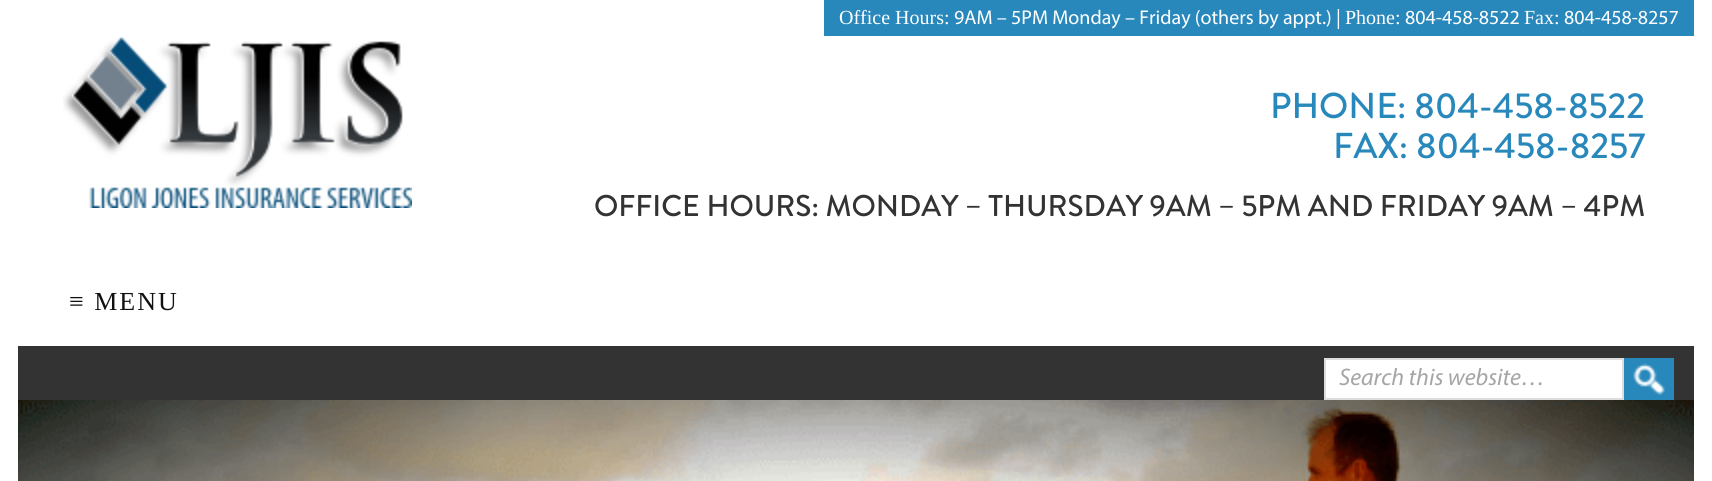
#include <cairo.h>
#include <math.h>
#include <stddef.h>


static void ink(cairo_t *ctx, unsigned color) {
    cairo_set_source_rgb(ctx, (color >> 16) / 255.0, (color >> 8 & 255) / 255.0, (color & 255) / 255.0);
}

static void write_spaced(cairo_t *ctx, double x, double y, const char *s, double letter, double word) {
    cairo_move_to(ctx, x, y);
    while (*s) {
        char ch[5] = {0};
        int n = 0;
        do ch[n++] = *s++; while ((*s & 0xC0) == 0x80);
        cairo_show_text(ctx, ch);
        cairo_rel_move_to(ctx, letter + word * (*ch == ' '), 0);
    }
}

static void paste(cairo_t *ctx, const char *path, double x, double y, double w, double h) {
    cairo_surface_t *image = cairo_image_surface_create_from_png(path);
    cairo_save(ctx);
    cairo_set_source_surface(ctx, image, x, y);
    cairo_rectangle(ctx, x, y, w, h);
    cairo_fill(ctx);
    cairo_restore(ctx);
    cairo_surface_destroy(image);
}

int main(void) {
    cairo_surface_t *surface = cairo_image_surface_create(CAIRO_FORMAT_RGB24, 1712, 481);
    cairo_t *ctx = cairo_create(surface);
    cairo_font_options_t *options = cairo_font_options_create();
    cairo_font_options_set_hint_metrics(options, CAIRO_HINT_METRICS_OFF);
    cairo_font_options_set_hint_style(options, CAIRO_HINT_STYLE_NONE);
    cairo_set_font_options(ctx, options);
    cairo_set_miter_limit(ctx, 4);
    ink(ctx, 0xFFFFFF);
    cairo_paint(ctx);
    ink(ctx, 0x2888BB);
    cairo_rectangle(ctx, 824, 0, 870, 36);
    cairo_fill(ctx);
    cairo_select_font_face(ctx, "Liberation Serif", CAIRO_FONT_SLANT_NORMAL, CAIRO_FONT_WEIGHT_NORMAL);
    cairo_set_font_size(ctx, 20);
    ink(ctx, 0xFFFFFF);
    cairo_move_to(ctx, 839, 24);
    cairo_show_text(ctx, "Office Hours:");
    cairo_select_font_face(ctx, "Myriad", CAIRO_FONT_SLANT_NORMAL, CAIRO_FONT_WEIGHT_NORMAL);
    cairo_move_to(ctx, 954, 24);
    cairo_show_text(ctx, "9AM – 5PM Monday – Friday (others by appt.) |");
    cairo_select_font_face(ctx, "Liberation Serif", CAIRO_FONT_SLANT_NORMAL, CAIRO_FONT_WEIGHT_NORMAL);
    cairo_move_to(ctx, 1345, 24);
    cairo_show_text(ctx, "Phone:");
    cairo_select_font_face(ctx, "Myriad", CAIRO_FONT_SLANT_NORMAL, CAIRO_FONT_WEIGHT_NORMAL);
    cairo_move_to(ctx, 1405, 24);
    cairo_show_text(ctx, "804-458-8522");
    cairo_select_font_face(ctx, "Liberation Serif", CAIRO_FONT_SLANT_NORMAL, CAIRO_FONT_WEIGHT_NORMAL);
    cairo_move_to(ctx, 1524, 24);
    cairo_show_text(ctx, "Fax:");
    cairo_select_font_face(ctx, "Myriad", CAIRO_FONT_SLANT_NORMAL, CAIRO_FONT_WEIGHT_NORMAL);
    cairo_move_to(ctx, 1564, 24);
    cairo_show_text(ctx, "804-458-8257");
    paste(ctx, "media/1.png", 63, 37, 349, 171);
    cairo_select_font_face(ctx, "Brandon Grotesque Medium", CAIRO_FONT_SLANT_NORMAL, CAIRO_FONT_WEIGHT_NORMAL);
    cairo_set_font_size(ctx, 36);
    ink(ctx, 0x2888BB);
    cairo_move_to(ctx, 1270, 118);
    cairo_show_text(ctx, "PHONE: 804-458-8522");
    cairo_move_to(ctx, 1333, 158);
    cairo_show_text(ctx, "FAX: 804-458-8257");
    cairo_set_font_size(ctx, 30);
    ink(ctx, 0x333333);
    cairo_move_to(ctx, 594, 216);
    cairo_show_text(ctx, "OFFICE HOURS: MONDAY – THURSDAY 9AM – 5PM AND FRIDAY 9AM – 4PM");
    cairo_rectangle(ctx, 18, 346, 1676, 54);
    cairo_fill(ctx);
    cairo_select_font_face(ctx, "Liberation Serif", CAIRO_FONT_SLANT_NORMAL, CAIRO_FONT_WEIGHT_NORMAL);
    cairo_set_font_size(ctx, 26);
    ink(ctx, 0x111111);
    write_spaced(ctx, 69, 310, "≡ MENU", 2, 0);
    ink(ctx, 0xFFFFFF);
    cairo_rectangle(ctx, 1325, 359, 298, 40);
    cairo_fill_preserve(ctx);
    ink(ctx, 0xDDDDDD);
    cairo_stroke(ctx);
    cairo_select_font_face(ctx, "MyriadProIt", CAIRO_FONT_SLANT_ITALIC, CAIRO_FONT_WEIGHT_NORMAL);
    cairo_set_font_size(ctx, 24);
    ink(ctx, 0xA5A5A5);
    cairo_move_to(ctx, 1339, 385);
    cairo_show_text(ctx, "Search this website…");
    paste(ctx, "media/2.png", 1624, 358, 50, 42);
    paste(ctx, "media/3.png", 18, 400, 1676, 81);
    cairo_surface_write_to_png(surface, "image.png");
    cairo_font_options_destroy(options);
    cairo_destroy(ctx);
    cairo_surface_destroy(surface);
    return 0;
}
